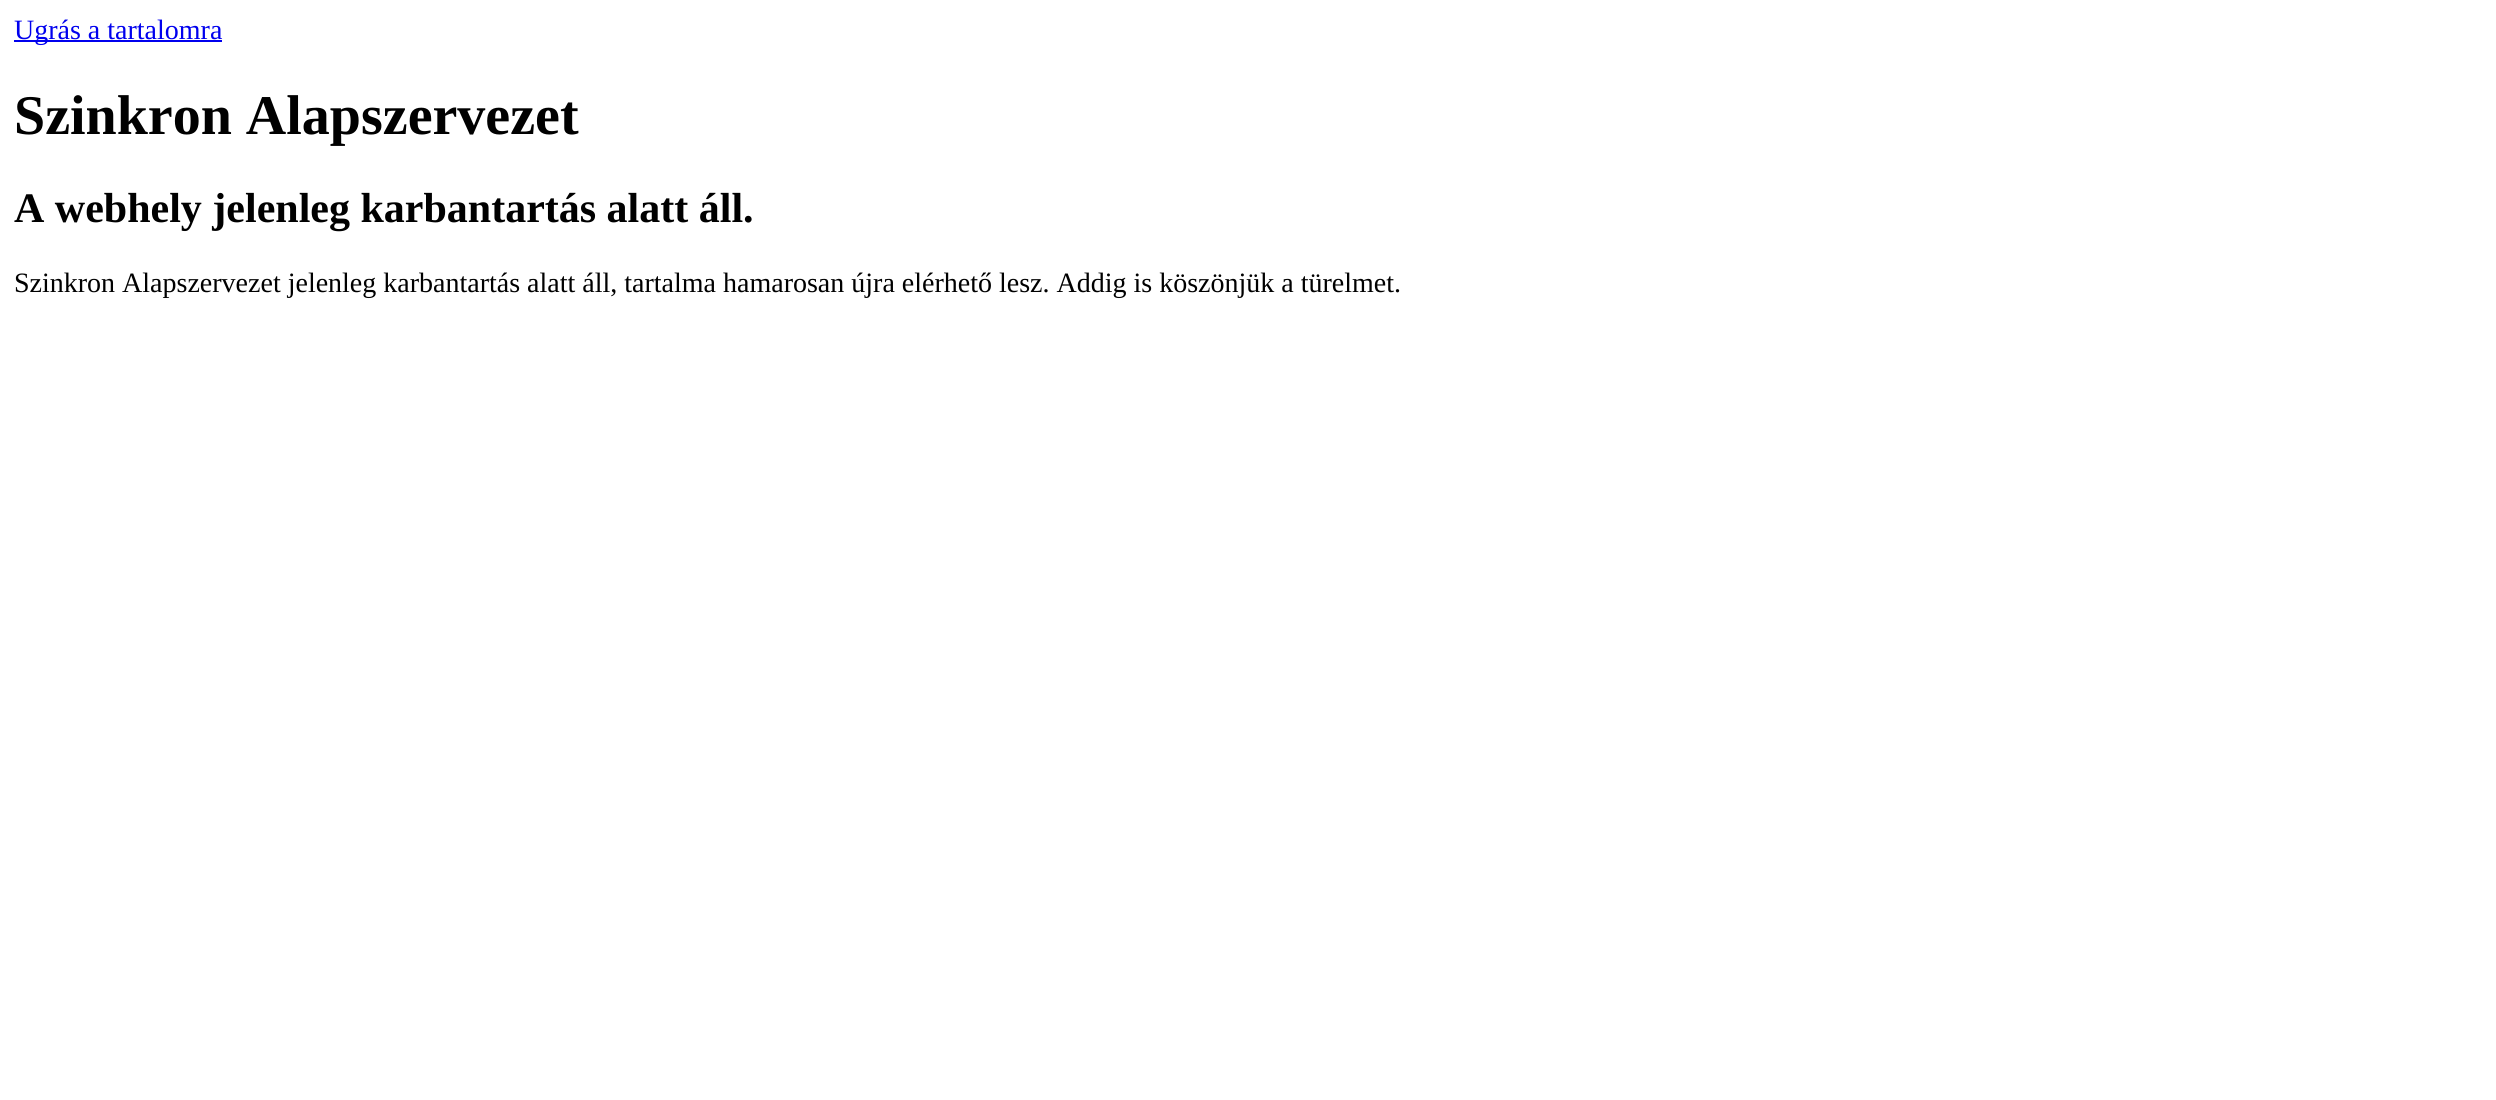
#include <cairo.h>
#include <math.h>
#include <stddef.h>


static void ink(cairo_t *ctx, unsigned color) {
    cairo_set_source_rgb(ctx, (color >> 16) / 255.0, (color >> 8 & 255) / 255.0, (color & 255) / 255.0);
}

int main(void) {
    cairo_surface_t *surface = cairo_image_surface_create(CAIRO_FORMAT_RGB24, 2496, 1100);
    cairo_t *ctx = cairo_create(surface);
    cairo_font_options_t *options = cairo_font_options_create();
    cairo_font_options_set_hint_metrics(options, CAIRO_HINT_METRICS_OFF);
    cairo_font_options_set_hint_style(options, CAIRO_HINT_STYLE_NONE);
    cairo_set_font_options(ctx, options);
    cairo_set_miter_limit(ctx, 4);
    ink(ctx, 0xFFFFFF);
    cairo_paint(ctx);
    ink(ctx, 0x0000EE);
    cairo_rectangle(ctx, 14, 40, 208, 2);
    cairo_fill(ctx);
    cairo_select_font_face(ctx, "Liberation Serif", CAIRO_FONT_SLANT_NORMAL, CAIRO_FONT_WEIGHT_NORMAL);
    cairo_set_font_size(ctx, 28);
    cairo_move_to(ctx, 14, 39);
    cairo_show_text(ctx, "Ugrás a tartalomra");
    cairo_select_font_face(ctx, "Liberation Serif", CAIRO_FONT_SLANT_NORMAL, CAIRO_FONT_WEIGHT_BOLD);
    cairo_set_font_size(ctx, 56);
    ink(ctx, 0x000000);
    cairo_move_to(ctx, 14, 134);
    cairo_show_text(ctx, "Szinkron Alapszervezet");
    cairo_set_font_size(ctx, 42);
    cairo_move_to(ctx, 14, 222);
    cairo_show_text(ctx, "A webhely jelenleg karbantartás alatt áll.");
    cairo_select_font_face(ctx, "Liberation Serif", CAIRO_FONT_SLANT_NORMAL, CAIRO_FONT_WEIGHT_NORMAL);
    cairo_set_font_size(ctx, 28);
    cairo_move_to(ctx, 14, 292);
    cairo_show_text(ctx, "Szinkron Alapszervezet jelenleg karbantartás alatt áll, tartalma hamarosan újra elérhető lesz. Addig is köszönjük a türelmet.");
    cairo_surface_write_to_png(surface, "image.png");
    cairo_font_options_destroy(options);
    cairo_destroy(ctx);
    cairo_surface_destroy(surface);
    return 0;
}
